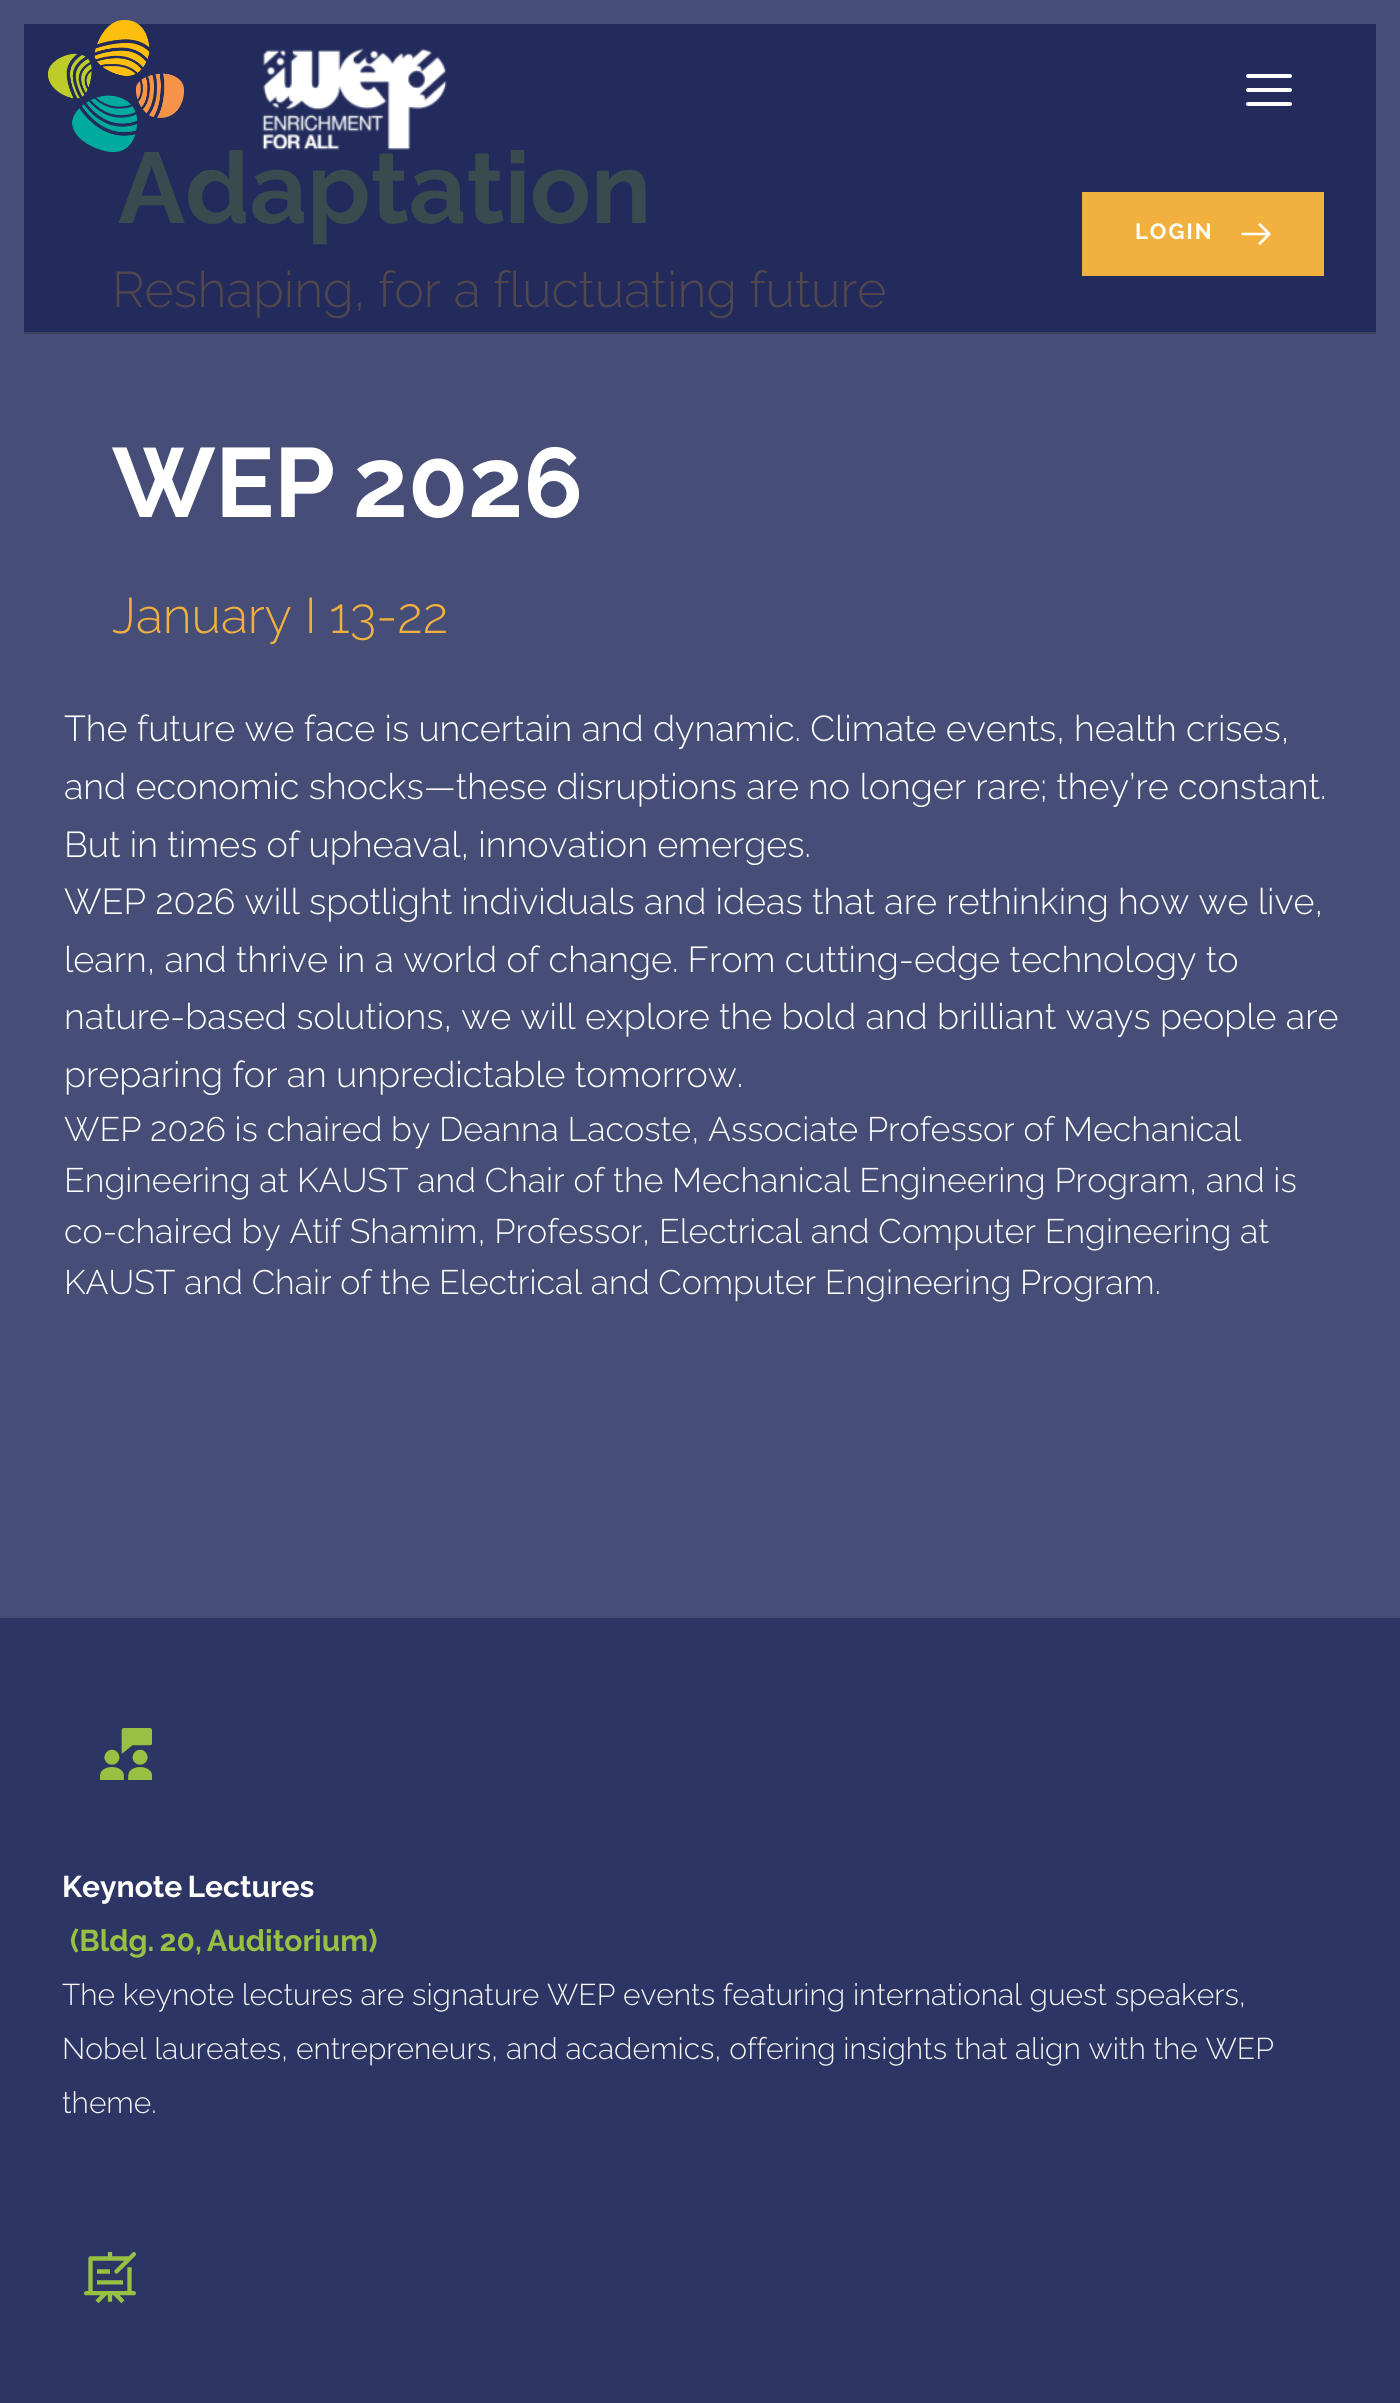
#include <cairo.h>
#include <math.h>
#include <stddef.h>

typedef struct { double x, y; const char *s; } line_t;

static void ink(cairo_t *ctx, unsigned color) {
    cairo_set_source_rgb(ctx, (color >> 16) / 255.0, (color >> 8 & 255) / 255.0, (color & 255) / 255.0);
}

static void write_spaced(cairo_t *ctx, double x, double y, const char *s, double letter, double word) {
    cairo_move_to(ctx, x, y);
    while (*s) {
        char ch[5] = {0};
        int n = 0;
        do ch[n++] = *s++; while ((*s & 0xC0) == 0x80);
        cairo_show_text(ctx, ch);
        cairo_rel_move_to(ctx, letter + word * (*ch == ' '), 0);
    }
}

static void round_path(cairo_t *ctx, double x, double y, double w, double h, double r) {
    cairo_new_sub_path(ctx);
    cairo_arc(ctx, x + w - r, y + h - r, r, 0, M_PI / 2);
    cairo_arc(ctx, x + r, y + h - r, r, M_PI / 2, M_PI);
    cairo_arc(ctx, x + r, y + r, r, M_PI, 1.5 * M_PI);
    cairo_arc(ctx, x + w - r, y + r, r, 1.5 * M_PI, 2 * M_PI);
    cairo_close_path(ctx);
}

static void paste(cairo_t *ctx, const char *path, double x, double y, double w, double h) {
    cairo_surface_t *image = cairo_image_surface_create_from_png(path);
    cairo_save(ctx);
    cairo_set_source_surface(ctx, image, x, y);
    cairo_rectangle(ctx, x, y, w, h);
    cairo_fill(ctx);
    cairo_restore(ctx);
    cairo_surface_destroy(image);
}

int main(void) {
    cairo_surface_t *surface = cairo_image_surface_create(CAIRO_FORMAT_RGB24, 1400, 2403);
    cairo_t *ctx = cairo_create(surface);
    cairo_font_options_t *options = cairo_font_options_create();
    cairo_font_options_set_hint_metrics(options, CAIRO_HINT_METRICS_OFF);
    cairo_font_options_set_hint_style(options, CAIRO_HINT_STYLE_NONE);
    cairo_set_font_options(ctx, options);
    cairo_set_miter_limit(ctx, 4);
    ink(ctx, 0x464D77);
    cairo_paint(ctx);
    ink(ctx, 0x222B5C);
    cairo_rectangle(ctx, 24, 24, 1352, 308);
    cairo_fill(ctx);
    cairo_select_font_face(ctx, "Raleway", CAIRO_FONT_SLANT_NORMAL, CAIRO_FONT_WEIGHT_BOLD);
    cairo_set_font_size(ctx, 100);
    ink(ctx, 0x394B4E);
    cairo_move_to(ctx, 118, 223);
    cairo_show_text(ctx, "Adaptation");
    cairo_select_font_face(ctx, "Raleway Thin", CAIRO_FONT_SLANT_NORMAL, CAIRO_FONT_WEIGHT_NORMAL);
    cairo_set_font_size(ctx, 50);
    ink(ctx, 0x52474C);
    cairo_move_to(ctx, 112, 307);
    cairo_show_text(ctx, "Reshaping, for a fluctuating future");
    cairo_select_font_face(ctx, "Raleway", CAIRO_FONT_SLANT_NORMAL, CAIRO_FONT_WEIGHT_BOLD);
    cairo_set_font_size(ctx, 98);
    ink(ctx, 0xFFFFFF);
    write_spaced(ctx, 112, 517, "WEP 2026", 0, -6);
    cairo_select_font_face(ctx, "Raleway Thin", CAIRO_FONT_SLANT_NORMAL, CAIRO_FONT_WEIGHT_NORMAL);
    cairo_set_font_size(ctx, 50);
    ink(ctx, 0xF2B13E);
    cairo_move_to(ctx, 112, 633);
    cairo_show_text(ctx, "January I 13-22");
    cairo_set_font_size(ctx, 36);
    ink(ctx, 0xFFFFFF);
    {
        static const line_t items[] = {
            {64, 741, "The future we face is uncertain and dynamic. Climate events, health crises,"},
            {64, 799, "and economic shocks—these disruptions are no longer rare; they’re constant."},
            {64, 857, "But in times of upheaval, innovation emerges."},
            {64, 914, "WEP 2026 will spotlight individuals and ideas that are rethinking how we live,"},
            {64, 972, "learn, and thrive in a world of change. From cutting-edge technology to"},
            {64, 1029, "nature-based solutions, we will explore the bold and brilliant ways people are"},
            {64, 1087, "preparing for an unpredictable tomorrow."},
        };
        for (size_t i = 0; i < sizeof items / sizeof *items; i++) {
            cairo_move_to(ctx, items[i].x, items[i].y);
            cairo_show_text(ctx, items[i].s);
        }
    }
    cairo_set_font_size(ctx, 34);
    {
        static const line_t items[] = {
            {64, 1141, "WEP 2026 is chaired by Deanna Lacoste, Associate Professor of Mechanical"},
            {64, 1192, "Engineering at KAUST and Chair of the Mechanical Engineering Program, and is"},
            {64, 1243, "co-chaired by Atif Shamim, Professor, Electrical and Computer Engineering at"},
            {64, 1294, "KAUST and Chair of the Electrical and Computer Engineering Program."},
        };
        for (size_t i = 0; i < sizeof items / sizeof *items; i++) {
            cairo_move_to(ctx, items[i].x, items[i].y);
            cairo_show_text(ctx, items[i].s);
        }
    }
    paste(ctx, "media/1.png", 48, 20, 136, 132);
    paste(ctx, "media/2.png", 262, 48, 185, 102);
    round_path(ctx, 1246, 74, 46, 4, 2);
    cairo_fill(ctx);
    round_path(ctx, 1246, 88, 46, 4, 2);
    cairo_fill(ctx);
    round_path(ctx, 1246, 102, 46, 4, 2);
    cairo_fill(ctx);
    ink(ctx, 0xF2B13E);
    cairo_rectangle(ctx, 1082, 192, 242, 84);
    cairo_fill(ctx);
    cairo_select_font_face(ctx, "Raleway", CAIRO_FONT_SLANT_NORMAL, CAIRO_FONT_WEIGHT_BOLD);
    cairo_set_font_size(ctx, 22);
    ink(ctx, 0xFFFFFF);
    write_spaced(ctx, 1135, 239, "LOGIN", 2, 0);
    paste(ctx, "media/3.png", 1241, 222, 30, 24);
    ink(ctx, 0x3B4162);
    cairo_rectangle(ctx, 24, 332, 1352, 2);
    cairo_fill(ctx);
    ink(ctx, 0x2C3563);
    cairo_rectangle(ctx, 0, 1618, 1400, 785);
    cairo_fill(ctx);
    paste(ctx, "media/4.png", 100, 1728, 52, 52);
    cairo_set_font_size(ctx, 30);
    ink(ctx, 0xFFFFFF);
    write_spaced(ctx, 62, 1897, "Keynote Lectures", 0, -2);
    ink(ctx, 0x98C043);
    write_spaced(ctx, 70, 1951, "(Bldg. 20, Auditorium)", 0, -2);
    cairo_select_font_face(ctx, "Raleway Thin", CAIRO_FONT_SLANT_NORMAL, CAIRO_FONT_WEIGHT_NORMAL);
    ink(ctx, 0xF6F6F6);
    {
        static const line_t items[] = {
            {62, 2005, "The keynote lectures are signature WEP events featuring international guest speakers,"},
            {62, 2059, "Nobel laureates, entrepreneurs, and academics, offering insights that align with the WEP"},
            {62, 2113, "theme."},
        };
        for (size_t i = 0; i < sizeof items / sizeof *items; i++) {
            cairo_move_to(ctx, items[i].x, items[i].y);
            cairo_show_text(ctx, items[i].s);
        }
    }
    paste(ctx, "media/5.png", 84, 2252, 52, 52);
    cairo_surface_write_to_png(surface, "image.png");
    cairo_font_options_destroy(options);
    cairo_destroy(ctx);
    cairo_surface_destroy(surface);
    return 0;
}
